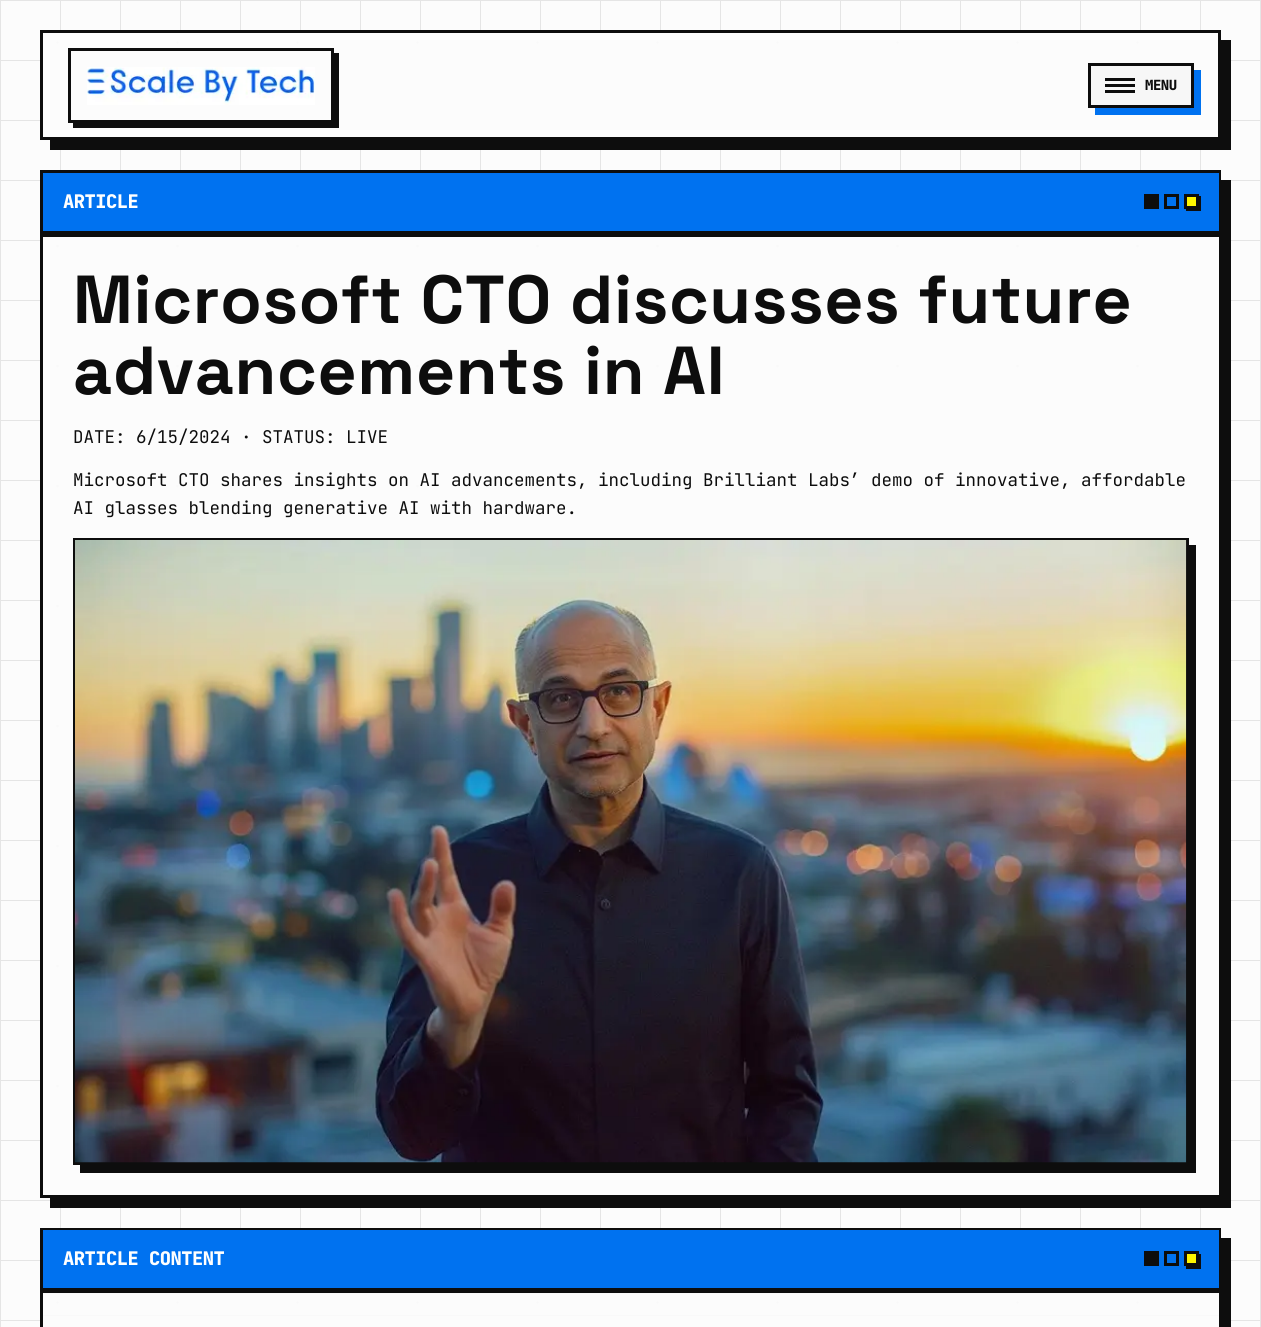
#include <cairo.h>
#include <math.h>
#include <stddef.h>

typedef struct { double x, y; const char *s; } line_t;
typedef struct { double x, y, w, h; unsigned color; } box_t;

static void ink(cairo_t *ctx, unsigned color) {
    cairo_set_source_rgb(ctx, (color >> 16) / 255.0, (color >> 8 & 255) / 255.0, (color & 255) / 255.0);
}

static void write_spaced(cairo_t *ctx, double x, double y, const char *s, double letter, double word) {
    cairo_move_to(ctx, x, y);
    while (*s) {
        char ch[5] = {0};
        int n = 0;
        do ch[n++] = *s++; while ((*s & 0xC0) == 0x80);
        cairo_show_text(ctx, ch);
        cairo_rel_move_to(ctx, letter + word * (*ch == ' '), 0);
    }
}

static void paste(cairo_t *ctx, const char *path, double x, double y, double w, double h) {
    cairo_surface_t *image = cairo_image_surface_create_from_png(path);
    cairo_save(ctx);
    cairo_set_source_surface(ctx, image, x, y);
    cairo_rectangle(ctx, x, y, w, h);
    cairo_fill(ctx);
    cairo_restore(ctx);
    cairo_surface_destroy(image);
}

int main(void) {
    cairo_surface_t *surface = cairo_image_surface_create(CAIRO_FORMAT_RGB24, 1261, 1327);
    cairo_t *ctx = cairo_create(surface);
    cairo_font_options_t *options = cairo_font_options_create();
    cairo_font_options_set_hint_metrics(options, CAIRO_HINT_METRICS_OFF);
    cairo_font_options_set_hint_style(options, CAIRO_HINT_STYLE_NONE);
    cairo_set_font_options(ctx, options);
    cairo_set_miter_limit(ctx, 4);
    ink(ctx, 0xFCFCFC);
    cairo_paint(ctx);
    paste(ctx, "media/1.png", 0, 0, 1261, 1321);
    paste(ctx, "media/2.png", 0, 1, 1261, 1326);
    ink(ctx, 0x0D0D0D);
    cairo_new_path(ctx);
    cairo_move_to(ctx, 50, 140);
    cairo_line_to(ctx, 50, 150);
    cairo_line_to(ctx, 1231, 150);
    cairo_line_to(ctx, 1231, 40);
    cairo_line_to(ctx, 1221, 40);
    cairo_line_to(ctx, 1221, 140);
    cairo_close_path(ctx);
    cairo_fill(ctx);
    ink(ctx, 0xFCFCFC);
    cairo_rectangle(ctx, 41.5, 31.5, 1178, 107);
    cairo_fill_preserve(ctx);
    ink(ctx, 0x0D0D0D);
    cairo_set_line_width(ctx, 3);
    cairo_stroke(ctx);
    cairo_new_path(ctx);
    cairo_move_to(ctx, 57.5, 42.5);
    cairo_line_to(ctx, 1137.8, 42.5);
    ink(ctx, 0xF9F9F9);
    cairo_set_line_width(ctx, 2.5);
    cairo_set_line_cap(ctx, CAIRO_LINE_CAP_ROUND);
    cairo_set_dash(ctx, (double[]){0, 120}, 2, 0);
    cairo_stroke(ctx);
    ink(ctx, 0x0D0D0D);
    cairo_new_path(ctx);
    cairo_move_to(ctx, 73, 122);
    cairo_line_to(ctx, 73, 128);
    cairo_line_to(ctx, 339, 128);
    cairo_line_to(ctx, 339, 53);
    cairo_line_to(ctx, 334, 53);
    cairo_line_to(ctx, 334, 122);
    cairo_close_path(ctx);
    cairo_fill(ctx);
    cairo_rectangle(ctx, 69.5, 49.5, 263, 72);
    cairo_set_line_width(ctx, 3);
    cairo_set_line_cap(ctx, CAIRO_LINE_CAP_BUTT);
    cairo_set_dash(ctx, NULL, 0, 0);
    cairo_stroke(ctx);
    paste(ctx, "media/3.png", 87, 67, 228, 38);
    ink(ctx, 0x0072F0);
    cairo_new_path(ctx);
    cairo_move_to(ctx, 1095, 108);
    cairo_line_to(ctx, 1095, 115);
    cairo_line_to(ctx, 1201, 115);
    cairo_line_to(ctx, 1201, 70);
    cairo_line_to(ctx, 1194, 70);
    cairo_line_to(ctx, 1194, 108);
    cairo_close_path(ctx);
    cairo_fill(ctx);
    ink(ctx, 0xF7F7F7);
    cairo_rectangle(ctx, 1089.5, 64.5, 103, 42);
    cairo_fill_preserve(ctx);
    ink(ctx, 0x0D0D0D);
    cairo_stroke(ctx);
    {
        static const box_t items[] = {
            {1105, 78, 30, 3, 0x0D0D0D},
            {1105, 84, 30, 3, 0x0D0D0D},
            {1105, 90, 30, 3, 0x0D0D0D},
        };
        for (size_t i = 0; i < sizeof items / sizeof *items; i++) {
            ink(ctx, items[i].color);
            cairo_rectangle(ctx, items[i].x, items[i].y, items[i].w, items[i].h);
            cairo_fill(ctx);
        }
    }
    cairo_select_font_face(ctx, "JetBrains Mono ExtraBold", CAIRO_FONT_SLANT_NORMAL, CAIRO_FONT_WEIGHT_NORMAL);
    cairo_set_font_size(ctx, 14);
    write_spaced(ctx, 1145, 90, "MENU", -0.5, 0);
    cairo_new_path(ctx);
    cairo_move_to(ctx, 50, 1198);
    cairo_line_to(ctx, 50, 1208);
    cairo_line_to(ctx, 1231, 1208);
    cairo_line_to(ctx, 1231, 180);
    cairo_line_to(ctx, 1221, 180);
    cairo_line_to(ctx, 1221, 1198);
    cairo_close_path(ctx);
    cairo_fill(ctx);
    cairo_rectangle(ctx, 41.5, 171.5, 1178, 1025);
    cairo_stroke(ctx);
    ink(ctx, 0x0072F0);
    cairo_rectangle(ctx, 43, 173, 1176, 58);
    cairo_fill(ctx);
    ink(ctx, 0x0D0D0D);
    cairo_rectangle(ctx, 43, 231, 1176, 6);
    cairo_fill(ctx);
    cairo_set_font_size(ctx, 18.75);
    ink(ctx, 0xFFFFFF);
    write_spaced(ctx, 63, 208, "ARTICLE", -0.5, 0);
    ink(ctx, 0x0D0D0D);
    cairo_rectangle(ctx, 1144, 194, 15, 15);
    cairo_fill(ctx);
    cairo_rectangle(ctx, 1165.5, 195.5, 12, 12);
    cairo_stroke(ctx);
    cairo_new_path(ctx);
    cairo_move_to(ctx, 1186, 209);
    cairo_line_to(ctx, 1186, 211);
    cairo_line_to(ctx, 1201, 211);
    cairo_line_to(ctx, 1201, 196);
    cairo_line_to(ctx, 1199, 196);
    cairo_line_to(ctx, 1199, 209);
    cairo_close_path(ctx);
    cairo_fill(ctx);
    ink(ctx, 0xFFF600);
    cairo_rectangle(ctx, 1185.5, 195.5, 12, 12);
    cairo_fill_preserve(ctx);
    ink(ctx, 0x0D0D0D);
    cairo_stroke(ctx);
    ink(ctx, 0xFCFCFC);
    cairo_rectangle(ctx, 43, 237, 1176, 958);
    cairo_fill(ctx);
    cairo_new_path(ctx);
    cairo_move_to(ctx, 57.5, 246.2);
    cairo_line_to(ctx, 1137.8, 246.2);
    ink(ctx, 0xF9F9F9);
    cairo_set_line_width(ctx, 2.5);
    cairo_set_line_cap(ctx, CAIRO_LINE_CAP_ROUND);
    cairo_set_dash(ctx, (double[]){0, 120}, 2, 0);
    cairo_stroke(ctx);
    cairo_new_path(ctx);
    cairo_move_to(ctx, 57.5, 366.2);
    cairo_line_to(ctx, 1137.8, 366.2);
    cairo_stroke(ctx);
    cairo_new_path(ctx);
    cairo_move_to(ctx, 57.5, 486.2);
    cairo_line_to(ctx, 1137.8, 486.2);
    cairo_stroke(ctx);
    cairo_new_path(ctx);
    cairo_move_to(ctx, 57.5, 606.2);
    cairo_line_to(ctx, 1137.8, 606.2);
    cairo_stroke(ctx);
    cairo_new_path(ctx);
    cairo_move_to(ctx, 57.5, 726.2);
    cairo_line_to(ctx, 1137.8, 726.2);
    cairo_stroke(ctx);
    cairo_new_path(ctx);
    cairo_move_to(ctx, 57.5, 846.2);
    cairo_line_to(ctx, 1137.8, 846.2);
    cairo_stroke(ctx);
    cairo_new_path(ctx);
    cairo_move_to(ctx, 57.5, 966.2);
    cairo_line_to(ctx, 1137.8, 966.2);
    cairo_stroke(ctx);
    cairo_new_path(ctx);
    cairo_move_to(ctx, 57.5, 1086.2);
    cairo_line_to(ctx, 1137.8, 1086.2);
    cairo_stroke(ctx);
    cairo_select_font_face(ctx, "Space Grotesk", CAIRO_FONT_SLANT_NORMAL, CAIRO_FONT_WEIGHT_BOLD);
    cairo_set_font_size(ctx, 67.8);
    ink(ctx, 0x0D0D0D);
    write_spaced(ctx, 73, 323, "Microsoft CTO discusses future", 0.7, 0);
    write_spaced(ctx, 73, 394, "advancements in AI", 0.7, 0);
    cairo_select_font_face(ctx, "JetBrains Mono", CAIRO_FONT_SLANT_NORMAL, CAIRO_FONT_WEIGHT_NORMAL);
    cairo_set_font_size(ctx, 17.5);
    {
        static const line_t items[] = {
            {73, 443, "DATE: 6/15/2024 · STATUS: LIVE"},
            {73, 486, "Microsoft CTO shares insights on AI advancements, including Brilliant Labs’ demo of innovative, affordable"},
            {73, 514, "AI glasses blending generative AI with hardware."},
        };
        for (size_t i = 0; i < sizeof items / sizeof *items; i++) {
            cairo_move_to(ctx, items[i].x, items[i].y);
            cairo_show_text(ctx, items[i].s);
        }
    }
    cairo_new_path(ctx);
    cairo_move_to(ctx, 80, 1165);
    cairo_line_to(ctx, 80, 1173);
    cairo_line_to(ctx, 1196, 1173);
    cairo_line_to(ctx, 1196, 545);
    cairo_line_to(ctx, 1189, 545);
    cairo_line_to(ctx, 1189, 1165);
    cairo_close_path(ctx);
    cairo_fill(ctx);
    cairo_rectangle(ctx, 74.5, 539.5, 1113, 624);
    cairo_set_line_width(ctx, 3);
    cairo_set_line_cap(ctx, CAIRO_LINE_CAP_BUTT);
    cairo_set_dash(ctx, NULL, 0, 0);
    cairo_stroke(ctx);
    paste(ctx, "media/4.png", 75, 540, 1112, 623);
    cairo_new_path(ctx);
    cairo_move_to(ctx, 50, 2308);
    cairo_line_to(ctx, 50, 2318);
    cairo_line_to(ctx, 1231, 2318);
    cairo_line_to(ctx, 1231, 1238);
    cairo_line_to(ctx, 1221, 1238);
    cairo_line_to(ctx, 1221, 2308);
    cairo_close_path(ctx);
    cairo_fill(ctx);
    cairo_rectangle(ctx, 41.5, 1229.5, 1178, 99);
    cairo_stroke(ctx);
    ink(ctx, 0x0072F0);
    cairo_rectangle(ctx, 43, 1230, 1176, 58);
    cairo_fill(ctx);
    ink(ctx, 0x0D0D0D);
    cairo_rectangle(ctx, 43, 1288, 1176, 5);
    cairo_fill(ctx);
    cairo_select_font_face(ctx, "JetBrains Mono ExtraBold", CAIRO_FONT_SLANT_NORMAL, CAIRO_FONT_WEIGHT_NORMAL);
    cairo_set_font_size(ctx, 18.75);
    ink(ctx, 0xFFFFFF);
    write_spaced(ctx, 63, 1265, "ARTICLE CONTENT", -0.5, 0);
    ink(ctx, 0x0D0D0D);
    cairo_rectangle(ctx, 1144, 1251, 15, 15);
    cairo_fill(ctx);
    cairo_rectangle(ctx, 1165.5, 1252.5, 12, 12);
    cairo_stroke(ctx);
    cairo_new_path(ctx);
    cairo_move_to(ctx, 1186, 1266);
    cairo_line_to(ctx, 1186, 1269);
    cairo_line_to(ctx, 1201, 1269);
    cairo_line_to(ctx, 1201, 1254);
    cairo_line_to(ctx, 1199, 1254);
    cairo_line_to(ctx, 1199, 1266);
    cairo_close_path(ctx);
    cairo_fill(ctx);
    ink(ctx, 0xFFF600);
    cairo_rectangle(ctx, 1185.5, 1252.5, 12, 12);
    cairo_fill_preserve(ctx);
    ink(ctx, 0x0D0D0D);
    cairo_stroke(ctx);
    ink(ctx, 0xFCFCFC);
    cairo_rectangle(ctx, 43, 1294, 1176, 33);
    cairo_fill(ctx);
    cairo_new_path(ctx);
    cairo_move_to(ctx, 57.5, 1302.5);
    cairo_line_to(ctx, 1137.8, 1302.5);
    ink(ctx, 0xF9F9F9);
    cairo_set_line_width(ctx, 2.5);
    cairo_set_line_cap(ctx, CAIRO_LINE_CAP_ROUND);
    cairo_set_dash(ctx, (double[]){0, 120}, 2, 0);
    cairo_stroke(ctx);
    cairo_rectangle(ctx, 43, 1293, 1176, 1);
    cairo_fill(ctx);
    cairo_rectangle(ctx, 43, 1315, 1176, 1);
    cairo_fill(ctx);
    cairo_surface_write_to_png(surface, "image.png");
    cairo_font_options_destroy(options);
    cairo_destroy(ctx);
    cairo_surface_destroy(surface);
    return 0;
}
